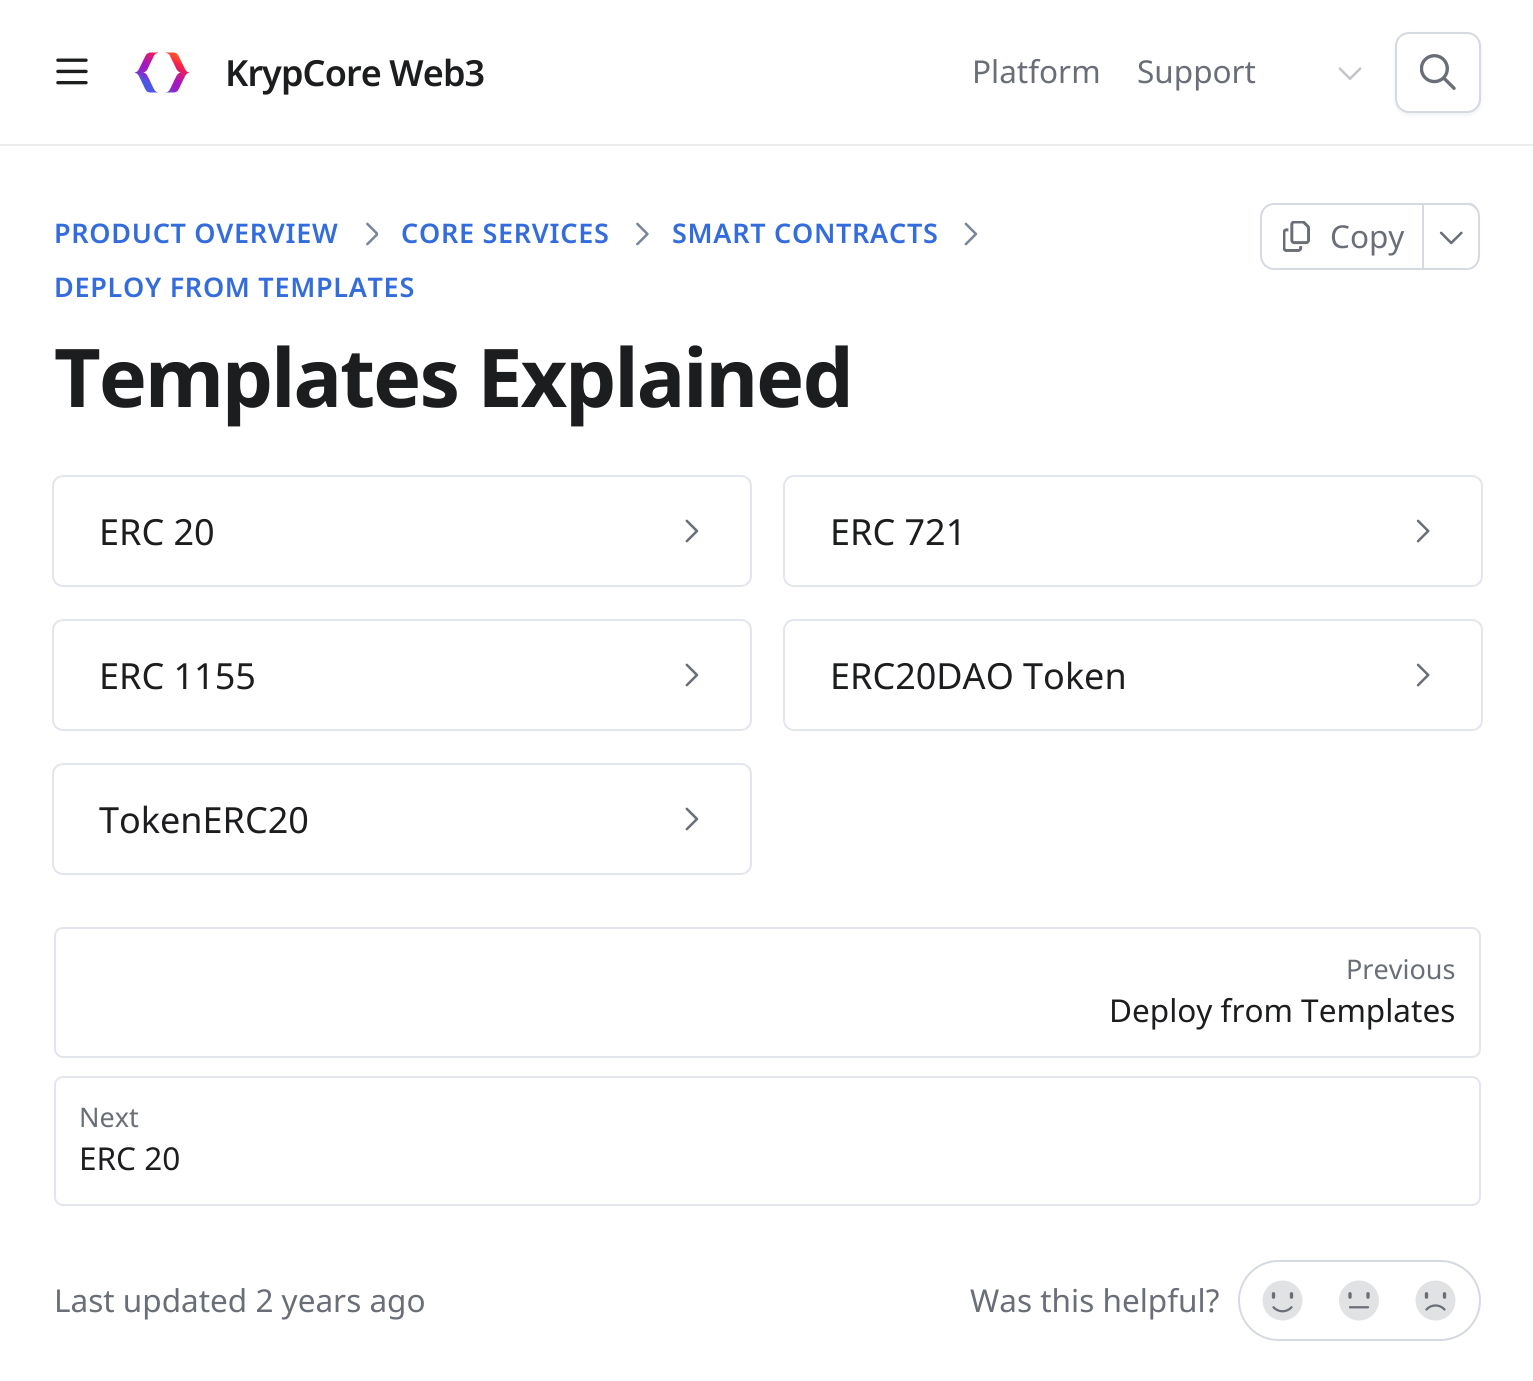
#include <cairo.h>
#include <math.h>
#include <stddef.h>


static void ink(cairo_t *ctx, unsigned color) {
    cairo_set_source_rgb(ctx, (color >> 16) / 255.0, (color >> 8 & 255) / 255.0, (color & 255) / 255.0);
}

static void write_spaced(cairo_t *ctx, double x, double y, const char *s, double letter, double word) {
    cairo_move_to(ctx, x, y);
    while (*s) {
        char ch[5] = {0};
        int n = 0;
        do ch[n++] = *s++; while ((*s & 0xC0) == 0x80);
        cairo_show_text(ctx, ch);
        cairo_rel_move_to(ctx, letter + word * (*ch == ' '), 0);
    }
}

static void round_path(cairo_t *ctx, double x, double y, double w, double h, double r) {
    cairo_new_sub_path(ctx);
    cairo_arc(ctx, x + w - r, y + h - r, r, 0, M_PI / 2);
    cairo_arc(ctx, x + r, y + h - r, r, M_PI / 2, M_PI);
    cairo_arc(ctx, x + r, y + r, r, M_PI, 1.5 * M_PI);
    cairo_arc(ctx, x + w - r, y + r, r, 1.5 * M_PI, 2 * M_PI);
    cairo_close_path(ctx);
}

static void blur_box(cairo_t *ctx, double x, double y, double w, double h, double r, double blur, double alpha) {
    cairo_push_group_with_content(ctx, CAIRO_CONTENT_ALPHA);
    cairo_set_operator(ctx, CAIRO_OPERATOR_SOURCE);
    for (int i = 15; i >= -15 && fmin(w, h) + blur * i / 3 > 0; i -= 2) {
        double e = blur * i / 6;
        cairo_set_source_rgba(ctx, 0, 0, 0, alpha * erfc((i - 1) / 8.5) / 2);
        round_path(ctx, x - e, y - e, w + 2 * e, h + 2 * e, fmax(0, fmin(r + e + blur * .6, fmin(w, h) / 2 + e)));
        cairo_fill(ctx);
    }
    cairo_pattern_t *soft = cairo_pop_group(ctx);
    cairo_mask(ctx, soft);
    cairo_pattern_destroy(soft);
}

static void paste(cairo_t *ctx, const char *path, double x, double y, double w, double h) {
    cairo_surface_t *image = cairo_image_surface_create_from_png(path);
    cairo_save(ctx);
    cairo_set_source_surface(ctx, image, x, y);
    cairo_rectangle(ctx, x, y, w, h);
    cairo_fill(ctx);
    cairo_restore(ctx);
    cairo_surface_destroy(image);
}

int main(void) {
    cairo_surface_t *surface = cairo_image_surface_create(CAIRO_FORMAT_RGB24, 1533, 1381);
    cairo_t *ctx = cairo_create(surface);
    cairo_font_options_t *options = cairo_font_options_create();
    cairo_font_options_set_hint_metrics(options, CAIRO_HINT_METRICS_OFF);
    cairo_font_options_set_hint_style(options, CAIRO_HINT_STYLE_NONE);
    cairo_set_font_options(ctx, options);
    cairo_set_miter_limit(ctx, 4);
    ink(ctx, 0xFFFFFF);
    cairo_paint(ctx);
    ink(ctx, 0xEDEDED);
    cairo_new_path(ctx);
    cairo_move_to(ctx, 0, 144);
    cairo_line_to(ctx, 0, 146);
    cairo_line_to(ctx, 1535, 146);
    cairo_line_to(ctx, 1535, 2);
    cairo_line_to(ctx, 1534, 2);
    cairo_line_to(ctx, 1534, 144);
    cairo_close_path(ctx);
    cairo_fill(ctx);
    paste(ctx, "media/1.png", 56, 58, 32, 27);
    paste(ctx, "media/2.png", 134, 52, 56, 41);
    cairo_select_font_face(ctx, "Noto Sans SemiBold", CAIRO_FONT_SLANT_NORMAL, CAIRO_FONT_WEIGHT_NORMAL);
    cairo_set_font_size(ctx, 36);
    ink(ctx, 0x1C1D1F);
    write_spaced(ctx, 225, 86, "KrypCore Web3", -0.9, 0);
    cairo_select_font_face(ctx, "Noto Sans", CAIRO_FONT_SLANT_NORMAL, CAIRO_FONT_WEIGHT_NORMAL);
    cairo_set_font_size(ctx, 31.5);
    ink(ctx, 0x6A6E77);
    cairo_move_to(ctx, 972, 83);
    cairo_show_text(ctx, "Platform");
    cairo_move_to(ctx, 1137, 83);
    cairo_show_text(ctx, "Support");
    paste(ctx, "media/3.png", 1338, 67, 24, 13);
    ink(ctx, 0xD5D9E0);
    blur_box(ctx, 1395, 34, 86, 81, 14, 2, 0.4);
    ink(ctx, 0xFFFFFF);
    round_path(ctx, 1396, 33, 84, 79, 13);
    cairo_fill_preserve(ctx);
    ink(ctx, 0xD5D9E0);
    cairo_stroke(ctx);
    paste(ctx, "media/4.png", 1420, 54, 36, 36);
    cairo_select_font_face(ctx, "Noto Sans SemiBold", CAIRO_FONT_SLANT_NORMAL, CAIRO_FONT_WEIGHT_NORMAL);
    cairo_set_font_size(ctx, 27);
    ink(ctx, 0x346DDB);
    write_spaced(ctx, 54, 243, "PRODUCT OVERVIEW", 0.7, 0);
    paste(ctx, "media/5.png", 366, 222, 12, 24);
    write_spaced(ctx, 401, 243, "CORE SERVICES", 0.7, 0);
    paste(ctx, "media/6.png", 636, 222, 13, 24);
    write_spaced(ctx, 672, 243, "SMART CONTRACTS", 0.7, 0);
    paste(ctx, "media/7.png", 964, 222, 14, 24);
    write_spaced(ctx, 54, 297, "DEPLOY FROM TEMPLATES", 0.7, 0);
    cairo_new_path(ctx);
    cairo_move_to(ctx, 1274, 204);
    cairo_line_to(ctx, 1423, 204);
    cairo_line_to(ctx, 1423, 269);
    cairo_line_to(ctx, 1274, 269);
    cairo_curve_to(ctx, 1267, 269, 1261, 263, 1261, 256);
    cairo_line_to(ctx, 1261, 217);
    cairo_curve_to(ctx, 1261, 210, 1267, 204, 1274, 204);
    cairo_close_path(ctx);
    ink(ctx, 0xD5D9E0);
    cairo_stroke(ctx);
    paste(ctx, "media/8.png", 1283, 221, 27, 31);
    cairo_select_font_face(ctx, "Noto Sans", CAIRO_FONT_SLANT_NORMAL, CAIRO_FONT_WEIGHT_NORMAL);
    cairo_set_font_size(ctx, 31.5);
    ink(ctx, 0x6A6E77);
    cairo_move_to(ctx, 1330, 248);
    cairo_show_text(ctx, "Copy");
    cairo_save(ctx);
    cairo_rectangle(ctx, 1260, 203, 221, 67);
    cairo_clip(ctx);
    ink(ctx, 0xD5D9E0);
    cairo_set_fill_rule(ctx, CAIRO_FILL_RULE_EVEN_ODD);
    cairo_new_path(ctx);
    cairo_move_to(ctx, 1424, 202);
    cairo_line_to(ctx, 1467, 202);
    cairo_curve_to(ctx, 1474, 202, 1480, 209, 1480, 216);
    cairo_line_to(ctx, 1480, 256);
    cairo_curve_to(ctx, 1480, 264, 1474, 270, 1467, 270);
    cairo_line_to(ctx, 1424, 270);
    cairo_close_path(ctx);
    cairo_move_to(ctx, 1424, 205);
    cairo_line_to(ctx, 1467, 205);
    cairo_curve_to(ctx, 1473, 205, 1478, 210, 1478, 216);
    cairo_line_to(ctx, 1478, 256);
    cairo_curve_to(ctx, 1478, 263, 1473, 268, 1467, 268);
    cairo_line_to(ctx, 1424, 268);
    cairo_close_path(ctx);
    cairo_fill(ctx);
    cairo_restore(ctx);
    paste(ctx, "media/9.png", 1439, 231, 24, 14);
    cairo_select_font_face(ctx, "Noto Sans", CAIRO_FONT_SLANT_NORMAL, CAIRO_FONT_WEIGHT_BOLD);
    cairo_set_font_size(ctx, 81);
    ink(ctx, 0x1C1D1F);
    write_spaced(ctx, 54, 407, "Templates Explained", -2, 0);
    round_path(ctx, 53, 476, 698, 110, 10);
    ink(ctx, 0xE2E6EC);
    cairo_stroke(ctx);
    cairo_select_font_face(ctx, "Noto Sans", CAIRO_FONT_SLANT_NORMAL, CAIRO_FONT_WEIGHT_NORMAL);
    cairo_set_font_size(ctx, 36);
    ink(ctx, 0x1C1D1F);
    cairo_move_to(ctx, 99, 545);
    cairo_show_text(ctx, "ERC 20");
    paste(ctx, "media/10.png", 685, 519, 14, 24);
    round_path(ctx, 784, 476, 698, 110, 10);
    ink(ctx, 0xE2E6EC);
    cairo_stroke(ctx);
    ink(ctx, 0x1C1D1F);
    cairo_move_to(ctx, 830, 545);
    cairo_show_text(ctx, "ERC 721");
    paste(ctx, "media/11.png", 1416, 519, 14, 24);
    round_path(ctx, 53, 620, 698, 110, 10);
    ink(ctx, 0xE2E6EC);
    cairo_stroke(ctx);
    ink(ctx, 0x1C1D1F);
    cairo_move_to(ctx, 99, 689);
    cairo_show_text(ctx, "ERC 1155");
    paste(ctx, "media/10.png", 685, 663, 14, 24);
    round_path(ctx, 784, 620, 698, 110, 10);
    ink(ctx, 0xE2E6EC);
    cairo_stroke(ctx);
    ink(ctx, 0x1C1D1F);
    cairo_move_to(ctx, 830, 689);
    cairo_show_text(ctx, "ERC20DAO Token");
    paste(ctx, "media/11.png", 1416, 663, 14, 24);
    round_path(ctx, 53, 764, 698, 110, 10);
    ink(ctx, 0xE2E6EC);
    cairo_stroke(ctx);
    ink(ctx, 0x1C1D1F);
    cairo_move_to(ctx, 99, 833);
    cairo_show_text(ctx, "TokenERC20");
    paste(ctx, "media/10.png", 685, 807, 14, 24);
    round_path(ctx, 55, 928, 1425, 129, 8);
    ink(ctx, 0xE2E6EC);
    cairo_stroke(ctx);
    cairo_set_font_size(ctx, 27);
    ink(ctx, 0x6A6E77);
    cairo_move_to(ctx, 1346, 979);
    cairo_show_text(ctx, "Previous");
    cairo_set_font_size(ctx, 31.5);
    ink(ctx, 0x1C1D1F);
    cairo_move_to(ctx, 1109, 1022);
    cairo_show_text(ctx, "Deploy from Templates");
    round_path(ctx, 55, 1077, 1425, 128, 8);
    ink(ctx, 0xE2E6EC);
    cairo_stroke(ctx);
    cairo_set_font_size(ctx, 27);
    ink(ctx, 0x6A6E77);
    cairo_move_to(ctx, 79, 1127);
    cairo_show_text(ctx, "Next");
    cairo_set_font_size(ctx, 31.5);
    ink(ctx, 0x1C1D1F);
    cairo_move_to(ctx, 79, 1170);
    cairo_show_text(ctx, "ERC 20");
    ink(ctx, 0x6A6E77);
    cairo_move_to(ctx, 54, 1312);
    cairo_show_text(ctx, "Last updated 2 years ago");
    cairo_move_to(ctx, 970, 1312);
    cairo_show_text(ctx, "Was this helpful?");
    round_path(ctx, 1239, 1261, 241, 79, 39.5);
    ink(ctx, 0xD5D9E0);
    cairo_stroke(ctx);
    paste(ctx, "media/12.png", 1262, 1280, 41, 41);
    paste(ctx, "media/13.png", 1339, 1280, 40, 41);
    paste(ctx, "media/14.png", 1415, 1280, 41, 41);
    cairo_surface_write_to_png(surface, "image.png");
    cairo_font_options_destroy(options);
    cairo_destroy(ctx);
    cairo_surface_destroy(surface);
    return 0;
}
